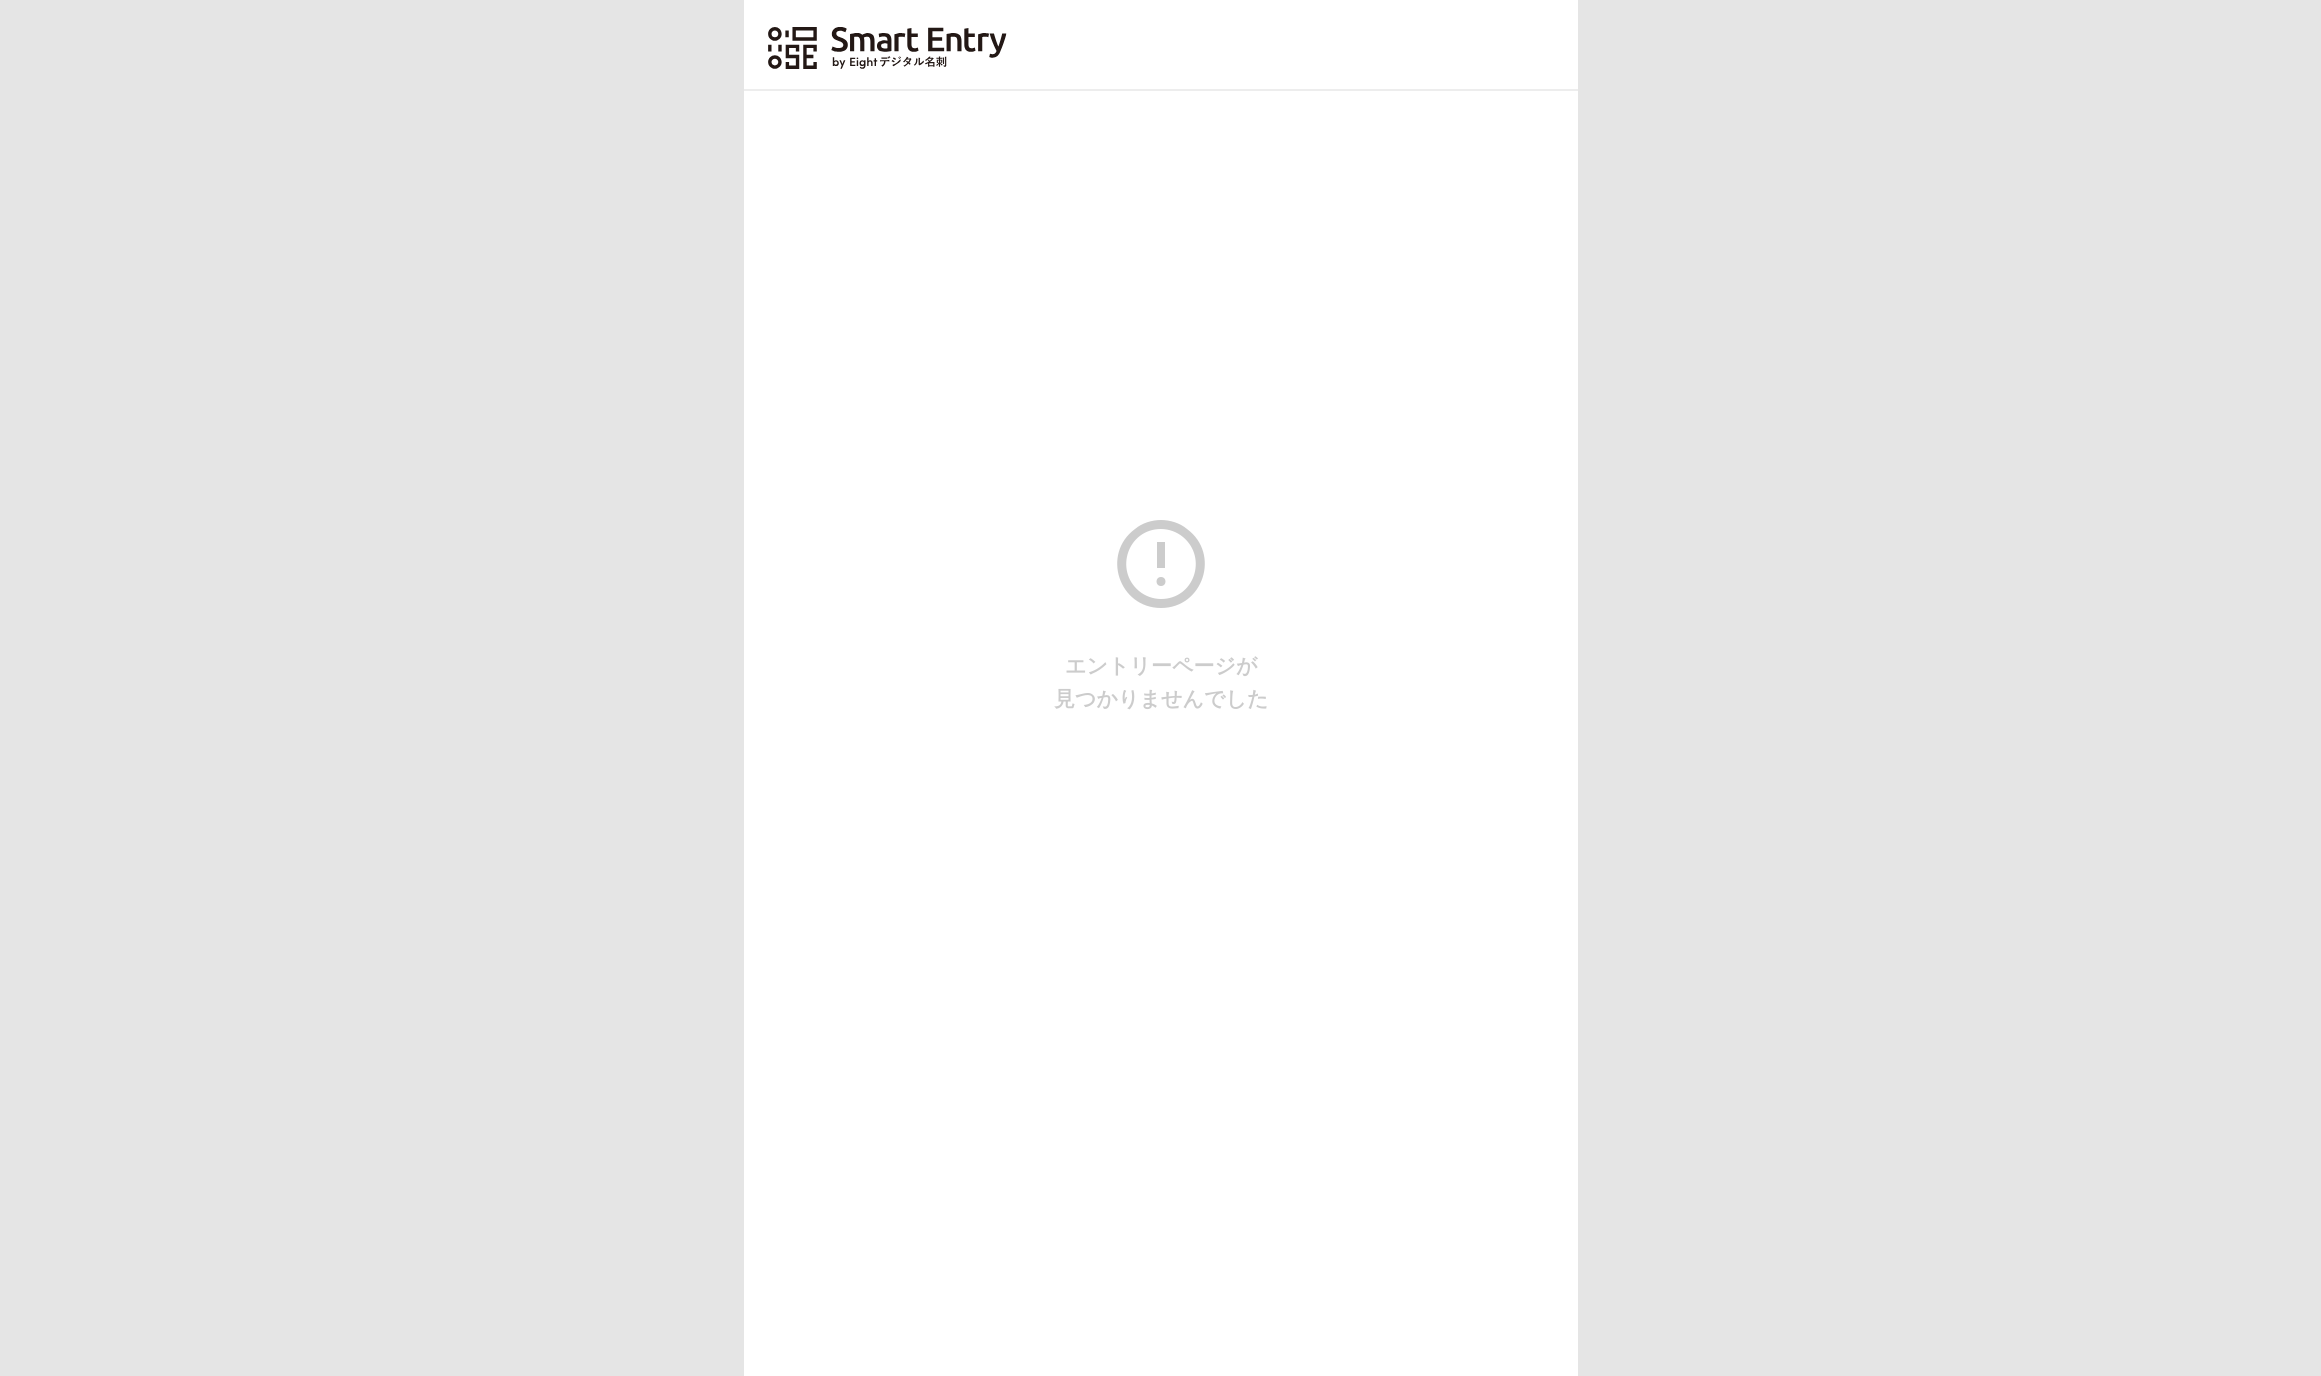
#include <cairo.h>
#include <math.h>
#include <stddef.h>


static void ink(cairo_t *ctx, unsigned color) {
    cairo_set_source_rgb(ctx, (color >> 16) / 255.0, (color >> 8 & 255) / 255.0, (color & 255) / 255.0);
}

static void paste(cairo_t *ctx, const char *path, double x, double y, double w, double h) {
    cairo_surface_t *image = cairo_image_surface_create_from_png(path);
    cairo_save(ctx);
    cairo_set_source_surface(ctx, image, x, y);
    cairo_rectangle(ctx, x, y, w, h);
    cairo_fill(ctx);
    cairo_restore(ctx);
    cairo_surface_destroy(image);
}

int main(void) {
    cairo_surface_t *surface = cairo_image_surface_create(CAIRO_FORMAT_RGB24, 2321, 1376);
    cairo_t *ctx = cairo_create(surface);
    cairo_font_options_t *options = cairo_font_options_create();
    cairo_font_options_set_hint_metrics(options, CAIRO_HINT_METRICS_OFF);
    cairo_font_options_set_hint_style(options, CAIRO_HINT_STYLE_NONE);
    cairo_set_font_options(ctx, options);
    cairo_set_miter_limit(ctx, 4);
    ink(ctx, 0xE5E5E5);
    cairo_paint(ctx);
    ink(ctx, 0xFFFFFF);
    cairo_rectangle(ctx, 744, 0, 834, 1376);
    cairo_fill(ctx);
    ink(ctx, 0xEDEDED);
    cairo_rectangle(ctx, 744, 89, 834, 2);
    cairo_fill(ctx);
    paste(ctx, "media/1.png", 768, 27, 239, 42);
    ink(ctx, 0xCCCCCC);
    cairo_new_path(ctx);
    cairo_move_to(ctx, 1161, 586);
    cairo_curve_to(ctx, 1167, 586, 1167, 577, 1161, 577);
    cairo_curve_to(ctx, 1155, 577, 1155, 586, 1161, 586);
    cairo_close_path(ctx);
    cairo_move_to(ctx, 1157, 568);
    cairo_line_to(ctx, 1165, 568);
    cairo_line_to(ctx, 1165, 542);
    cairo_line_to(ctx, 1157, 542);
    cairo_close_path(ctx);
    cairo_move_to(ctx, 1161, 608);
    cairo_curve_to(ctx, 1119, 608, 1101, 554, 1135, 529);
    cairo_curve_to(ctx, 1142, 523, 1152, 520, 1161, 520);
    cairo_curve_to(ctx, 1170, 520, 1180, 523, 1187, 529);
    cairo_curve_to(ctx, 1221, 554, 1203, 608, 1161, 608);
    cairo_close_path(ctx);
    cairo_move_to(ctx, 1161, 599);
    cairo_curve_to(ctx, 1194, 599, 1208, 558, 1183, 537);
    cairo_curve_to(ctx, 1177, 532, 1169, 529, 1161, 529);
    cairo_curve_to(ctx, 1128, 529, 1114, 570, 1139, 591);
    cairo_curve_to(ctx, 1145, 596, 1153, 599, 1161, 599);
    cairo_close_path(ctx);
    cairo_move_to(ctx, 1161, 564);
    cairo_close_path(ctx);
    cairo_fill(ctx);
    cairo_select_font_face(ctx, "WenQuanYi Zen Hei", CAIRO_FONT_SLANT_NORMAL, CAIRO_FONT_WEIGHT_BOLD);
    cairo_set_font_size(ctx, 21);
    cairo_move_to(ctx, 1065, 673);
    cairo_show_text(ctx, "エントリーページが");
    cairo_move_to(ctx, 1054, 706);
    cairo_show_text(ctx, "見つかりませんでした");
    cairo_surface_write_to_png(surface, "image.png");
    cairo_font_options_destroy(options);
    cairo_destroy(ctx);
    cairo_surface_destroy(surface);
    return 0;
}
